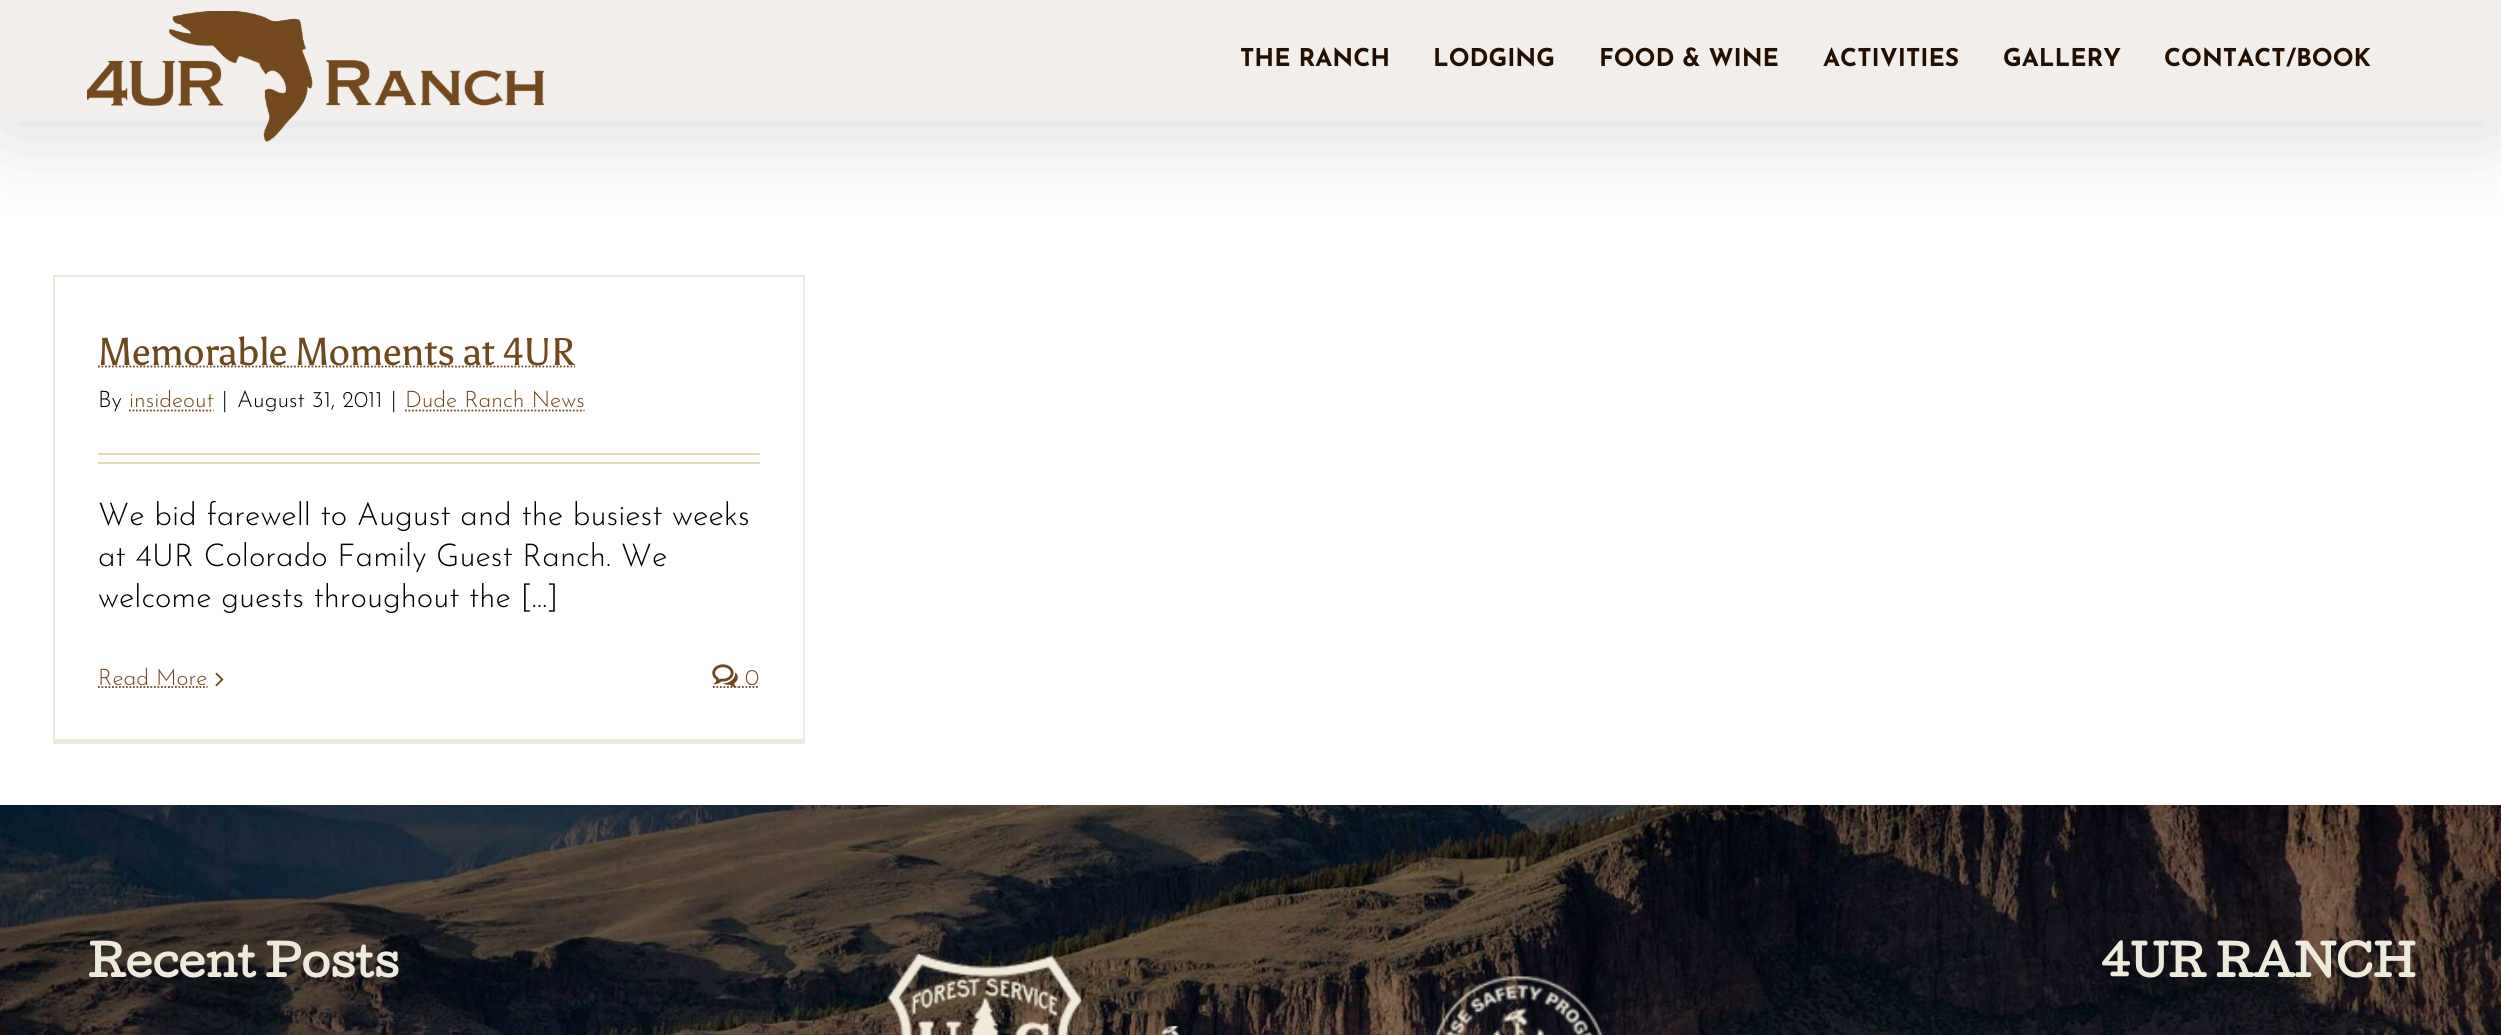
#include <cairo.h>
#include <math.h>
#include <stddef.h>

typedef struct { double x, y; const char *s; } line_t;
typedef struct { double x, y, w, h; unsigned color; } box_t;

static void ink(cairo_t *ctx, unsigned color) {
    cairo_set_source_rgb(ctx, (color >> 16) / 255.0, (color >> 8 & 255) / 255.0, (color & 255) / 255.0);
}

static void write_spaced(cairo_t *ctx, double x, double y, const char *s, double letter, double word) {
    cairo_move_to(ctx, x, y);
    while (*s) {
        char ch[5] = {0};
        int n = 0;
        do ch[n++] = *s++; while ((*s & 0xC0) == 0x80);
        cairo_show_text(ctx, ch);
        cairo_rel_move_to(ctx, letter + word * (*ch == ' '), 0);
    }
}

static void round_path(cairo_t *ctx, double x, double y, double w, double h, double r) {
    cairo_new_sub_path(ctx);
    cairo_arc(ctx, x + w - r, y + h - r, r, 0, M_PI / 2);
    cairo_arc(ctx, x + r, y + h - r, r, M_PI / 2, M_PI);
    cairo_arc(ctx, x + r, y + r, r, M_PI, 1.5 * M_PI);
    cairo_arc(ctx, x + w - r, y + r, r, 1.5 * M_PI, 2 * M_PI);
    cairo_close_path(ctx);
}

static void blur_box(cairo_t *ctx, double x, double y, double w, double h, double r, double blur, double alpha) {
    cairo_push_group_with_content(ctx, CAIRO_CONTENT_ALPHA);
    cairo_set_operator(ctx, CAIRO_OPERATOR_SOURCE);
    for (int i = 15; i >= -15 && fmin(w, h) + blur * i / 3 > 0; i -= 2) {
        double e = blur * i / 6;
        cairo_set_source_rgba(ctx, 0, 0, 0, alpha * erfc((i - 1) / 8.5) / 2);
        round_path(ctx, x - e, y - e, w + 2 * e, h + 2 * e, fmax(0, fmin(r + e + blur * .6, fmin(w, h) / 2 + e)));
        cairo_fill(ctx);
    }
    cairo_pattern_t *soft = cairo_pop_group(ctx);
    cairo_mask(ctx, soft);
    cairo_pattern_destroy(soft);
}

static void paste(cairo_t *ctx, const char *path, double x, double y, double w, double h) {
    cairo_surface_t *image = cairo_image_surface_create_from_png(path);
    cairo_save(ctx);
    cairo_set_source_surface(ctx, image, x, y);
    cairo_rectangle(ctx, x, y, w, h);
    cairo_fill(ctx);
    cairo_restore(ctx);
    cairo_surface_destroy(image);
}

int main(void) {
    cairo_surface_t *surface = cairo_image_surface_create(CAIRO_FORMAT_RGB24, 2501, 1035);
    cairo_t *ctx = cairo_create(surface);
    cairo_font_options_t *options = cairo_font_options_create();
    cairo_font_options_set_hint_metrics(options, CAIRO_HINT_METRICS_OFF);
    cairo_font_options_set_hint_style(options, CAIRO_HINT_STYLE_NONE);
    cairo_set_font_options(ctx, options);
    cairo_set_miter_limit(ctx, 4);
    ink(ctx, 0xFFFFFF);
    cairo_paint(ctx);
    ink(ctx, 0x000000);
    blur_box(ctx, 4, 21, 2495, 114, 0, 44, 0.14);
    ink(ctx, 0xF2EEEB);
    cairo_rectangle(ctx, 0, 0, 2501, 121);
    cairo_fill(ctx);
    paste(ctx, "media/1.png", 87, 11, 458, 131);
    cairo_select_font_face(ctx, "Josefin Sans", CAIRO_FONT_SLANT_NORMAL, CAIRO_FONT_WEIGHT_BOLD);
    cairo_set_font_size(ctx, 24.5);
    ink(ctx, 0x231002);
    {
        static const line_t items[] = {
            {1240, 66, "THE RANCH"},
            {1433, 66, "LODGING"},
            {1599, 66, "FOOD & WINE"},
            {1823, 66, "ACTIVITIES"},
            {2003, 66, "GALLERY"},
            {2164, 66, "CONTACT/BOOK"},
        };
        for (size_t i = 0; i < sizeof items / sizeof *items; i++) {
            cairo_move_to(ctx, items[i].x, items[i].y);
            cairo_show_text(ctx, items[i].s);
        }
    }
    {
        static const box_t items[] = {
            {53, 275, 752, 2, 0xEEEADB},
            {803, 275, 2, 469, 0xEEEADB},
            {53, 739, 752, 5, 0xEEEADB},
            {53, 275, 2, 469, 0xEEEADB},
        };
        for (size_t i = 0; i < sizeof items / sizeof *items; i++) {
            ink(ctx, items[i].color);
            cairo_rectangle(ctx, items[i].x, items[i].y, items[i].w, items[i].h);
            cairo_fill(ctx);
        }
    }
    cairo_new_path(ctx);
    cairo_move_to(ctx, 98, 366.5);
    cairo_line_to(ctx, 575, 366.5);
    ink(ctx, 0x6E491E);
    cairo_set_line_width(ctx, 1.8);
    cairo_set_dash(ctx, (double[]){1.75, 1.75}, 2, 0);
    cairo_stroke(ctx);
    cairo_select_font_face(ctx, "Asul", CAIRO_FONT_SLANT_NORMAL, CAIRO_FONT_WEIGHT_NORMAL);
    cairo_set_font_size(ctx, 38.5);
    write_spaced(ctx, 98, 365, "Memorable Moments at 4UR", -0.6, 0);
    cairo_select_font_face(ctx, "Josefin Sans Light", CAIRO_FONT_SLANT_NORMAL, CAIRO_FONT_WEIGHT_NORMAL);
    cairo_set_font_size(ctx, 22.75);
    ink(ctx, 0x000000);
    cairo_move_to(ctx, 98, 407);
    cairo_show_text(ctx, "By");
    ink(ctx, 0x6E491E);
    cairo_move_to(ctx, 129, 407);
    cairo_show_text(ctx, "insideout");
    cairo_new_path(ctx);
    cairo_move_to(ctx, 129, 410.5);
    cairo_line_to(ctx, 213.5, 410.5);
    cairo_stroke(ctx);
    ink(ctx, 0x000000);
    {
        static const line_t items[] = {
            {222, 407, "|"},
            {237, 407, "August 31, 2011"},
            {391, 407, "|"},
        };
        for (size_t i = 0; i < sizeof items / sizeof *items; i++) {
            cairo_move_to(ctx, items[i].x, items[i].y);
            cairo_show_text(ctx, items[i].s);
        }
    }
    ink(ctx, 0x6E491E);
    cairo_move_to(ctx, 405, 407);
    cairo_show_text(ctx, "Dude Ranch News");
    cairo_new_path(ctx);
    cairo_move_to(ctx, 405, 410.5);
    cairo_line_to(ctx, 584.5, 410.5);
    cairo_stroke(ctx);
    ink(ctx, 0xE4DBBC);
    cairo_rectangle(ctx, 98, 453, 662, 2);
    cairo_fill(ctx);
    cairo_rectangle(ctx, 98, 462, 662, 2);
    cairo_fill(ctx);
    cairo_set_font_size(ctx, 31.5);
    ink(ctx, 0x000000);
    {
        static const line_t items[] = {
            {98, 525, "We bid farewell to August and the busiest weeks"},
            {98, 566, "at 4UR Colorado Family Guest Ranch. We"},
            {98, 607, "welcome guests throughout the [...]"},
        };
        for (size_t i = 0; i < sizeof items / sizeof *items; i++) {
            cairo_move_to(ctx, items[i].x, items[i].y);
            cairo_show_text(ctx, items[i].s);
        }
    }
    cairo_set_font_size(ctx, 22.75);
    ink(ctx, 0x6E491E);
    cairo_move_to(ctx, 98, 685);
    cairo_show_text(ctx, "Read More");
    cairo_new_path(ctx);
    cairo_move_to(ctx, 98, 687);
    cairo_line_to(ctx, 207.5, 687);
    cairo_stroke(ctx);
    paste(ctx, "media/2.png", 215, 672, 9, 15);
    cairo_new_path(ctx);
    cairo_move_to(ctx, 713, 687);
    cairo_line_to(ctx, 738.5, 687);
    cairo_stroke(ctx);
    paste(ctx, "media/3.png", 712, 664, 26, 24);
    cairo_move_to(ctx, 745, 685);
    cairo_show_text(ctx, "0");
    cairo_new_path(ctx);
    cairo_move_to(ctx, 738.5, 687);
    cairo_line_to(ctx, 759.5, 687);
    cairo_stroke(ctx);
    paste(ctx, "media/4.png", 0, 805, 2501, 230);
    cairo_select_font_face(ctx, "Cutive", CAIRO_FONT_SLANT_NORMAL, CAIRO_FONT_WEIGHT_BOLD);
    cairo_set_font_size(ctx, 42);
    ink(ctx, 0xEEEADB);
    cairo_move_to(ctx, 88, 977);
    cairo_show_text(ctx, "Recent Posts");
    paste(ctx, "media/5.png", 887, 954, 194, 81);
    paste(ctx, "media/6.png", 1161, 1026, 19, 9);
    paste(ctx, "media/7.png", 1434, 976, 170, 59);
    cairo_move_to(ctx, 2100, 977);
    cairo_show_text(ctx, "4UR RANCH");
    cairo_surface_write_to_png(surface, "image.png");
    cairo_font_options_destroy(options);
    cairo_destroy(ctx);
    cairo_surface_destroy(surface);
    return 0;
}
